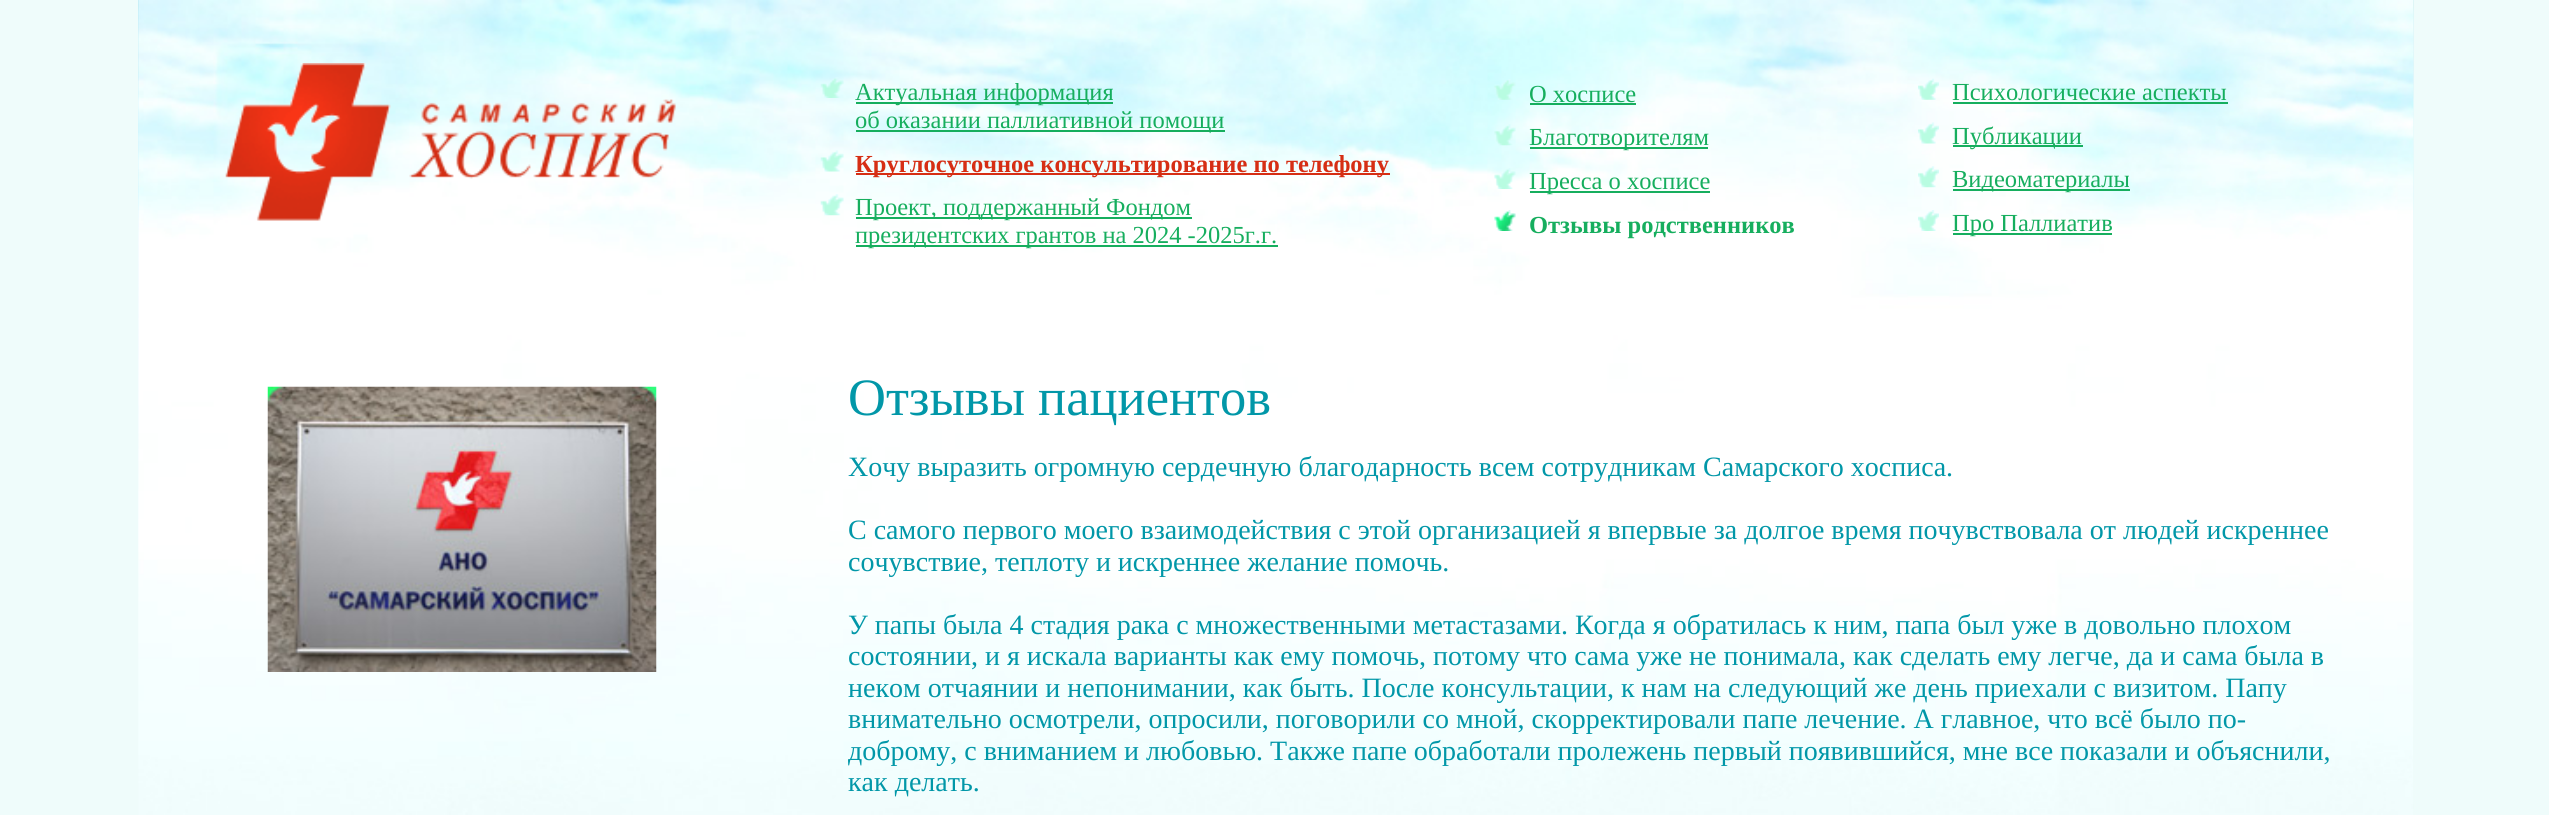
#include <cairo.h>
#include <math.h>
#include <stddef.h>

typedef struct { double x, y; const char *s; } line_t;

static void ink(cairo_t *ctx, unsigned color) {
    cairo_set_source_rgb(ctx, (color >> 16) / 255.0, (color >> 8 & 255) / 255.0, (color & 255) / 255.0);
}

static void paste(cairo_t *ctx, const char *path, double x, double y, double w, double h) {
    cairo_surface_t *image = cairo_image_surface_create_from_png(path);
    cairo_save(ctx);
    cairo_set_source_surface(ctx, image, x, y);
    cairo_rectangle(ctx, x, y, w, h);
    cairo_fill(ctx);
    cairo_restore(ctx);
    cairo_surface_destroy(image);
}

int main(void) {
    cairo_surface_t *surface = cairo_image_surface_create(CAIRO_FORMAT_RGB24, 2549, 815);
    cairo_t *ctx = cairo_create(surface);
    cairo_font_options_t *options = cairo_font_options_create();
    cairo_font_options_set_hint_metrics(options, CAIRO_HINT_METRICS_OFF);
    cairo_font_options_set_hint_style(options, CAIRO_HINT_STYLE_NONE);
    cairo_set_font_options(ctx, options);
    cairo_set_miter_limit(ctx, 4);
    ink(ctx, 0xEFFCFB);
    cairo_paint(ctx);
    paste(ctx, "media/1.png", 138, 0, 2276, 597);
    paste(ctx, "media/2.png", 2413, 0, 1, 815);
    paste(ctx, "media/3.png", 138, 0, 2276, 815);
    paste(ctx, "media/4.png", 225, 63, 451, 158);
    paste(ctx, "media/5.png", 820, 77, 24, 21);
    ink(ctx, 0x16AE5E);
    cairo_rectangle(ctx, 856, 102, 257, 2);
    cairo_fill(ctx);
    cairo_select_font_face(ctx, "Liberation Serif", CAIRO_FONT_SLANT_NORMAL, CAIRO_FONT_WEIGHT_NORMAL);
    cairo_set_font_size(ctx, 24.5);
    cairo_move_to(ctx, 855, 100);
    cairo_show_text(ctx, "Актуальная информация");
    cairo_rectangle(ctx, 856, 130, 369, 2);
    cairo_fill(ctx);
    cairo_move_to(ctx, 855, 128);
    cairo_show_text(ctx, "об оказании паллиативной помощи");
    paste(ctx, "media/6.png", 820, 150, 24, 22);
    ink(ctx, 0xD62E14);
    cairo_rectangle(ctx, 856, 173, 534, 2);
    cairo_fill(ctx);
    cairo_select_font_face(ctx, "Liberation Serif", CAIRO_FONT_SLANT_NORMAL, CAIRO_FONT_WEIGHT_BOLD);
    cairo_move_to(ctx, 855, 172);
    cairo_show_text(ctx, "Круглосуточное консультирование по телефону");
    paste(ctx, "media/7.png", 820, 194, 24, 22);
    ink(ctx, 0x16AE5E);
    cairo_rectangle(ctx, 856, 217, 336, 2);
    cairo_fill(ctx);
    cairo_select_font_face(ctx, "Liberation Serif", CAIRO_FONT_SLANT_NORMAL, CAIRO_FONT_WEIGHT_NORMAL);
    cairo_move_to(ctx, 855, 215);
    cairo_show_text(ctx, "Проект, поддержанный Фондом");
    cairo_rectangle(ctx, 856, 245, 422, 2);
    cairo_fill(ctx);
    cairo_move_to(ctx, 855, 243);
    cairo_show_text(ctx, "президентских грантов на 2024 -2025г.г.");
    paste(ctx, "media/8.png", 1494, 79, 22, 21);
    cairo_move_to(ctx, 1529, 102);
    cairo_show_text(ctx, "О хосписе");
    cairo_rectangle(ctx, 1530, 103, 106, 2);
    cairo_fill(ctx);
    paste(ctx, "media/9.png", 1494, 124, 22, 22);
    cairo_rectangle(ctx, 1530, 147, 178, 2);
    cairo_fill(ctx);
    cairo_move_to(ctx, 1529, 145);
    cairo_show_text(ctx, "Благотворителям");
    paste(ctx, "media/10.png", 1494, 168, 22, 21);
    cairo_rectangle(ctx, 1530, 191, 180, 2);
    cairo_fill(ctx);
    cairo_move_to(ctx, 1529, 189);
    cairo_show_text(ctx, "Пресса о хосписе");
    paste(ctx, "media/11.png", 1494, 210, 22, 21);
    cairo_select_font_face(ctx, "Liberation Serif", CAIRO_FONT_SLANT_NORMAL, CAIRO_FONT_WEIGHT_BOLD);
    cairo_move_to(ctx, 1529, 233);
    cairo_show_text(ctx, "Отзывы родственников");
    paste(ctx, "media/12.png", 1918, 78, 21, 22);
    cairo_select_font_face(ctx, "Liberation Serif", CAIRO_FONT_SLANT_NORMAL, CAIRO_FONT_WEIGHT_NORMAL);
    cairo_move_to(ctx, 1952, 100);
    cairo_show_text(ctx, "Психологические аспекты");
    cairo_rectangle(ctx, 1953, 102, 275, 2);
    cairo_fill(ctx);
    paste(ctx, "media/13.png", 1918, 122, 21, 22);
    cairo_rectangle(ctx, 1953, 145, 130, 2);
    cairo_fill(ctx);
    cairo_move_to(ctx, 1952, 144);
    cairo_show_text(ctx, "Публикации");
    paste(ctx, "media/14.png", 1918, 166, 21, 22);
    cairo_rectangle(ctx, 1953, 189, 177, 2);
    cairo_fill(ctx);
    cairo_move_to(ctx, 1952, 187);
    cairo_show_text(ctx, "Видеоматериалы");
    paste(ctx, "media/15.png", 1918, 210, 21, 21);
    cairo_rectangle(ctx, 1953, 233, 159, 2);
    cairo_fill(ctx);
    cairo_move_to(ctx, 1952, 231);
    cairo_show_text(ctx, "Про Паллиатив");
    paste(ctx, "media/16.png", 267, 386, 390, 286);
    cairo_set_font_size(ctx, 52.5);
    ink(ctx, 0x0197A8);
    cairo_move_to(ctx, 848, 415);
    cairo_show_text(ctx, "Отзывы пациентов");
    cairo_set_font_size(ctx, 28);
    {
        static const line_t items[] = {
            {848, 476, "Хочу выразить огромную сердечную благодарность всем сотрудникам Самарского хосписа."},
            {848, 539, "С самого первого моего взаимодействия с этой организацией я впервые за долгое время почувствовала от людей искреннее"},
            {848, 571, "сочувствие, теплоту и искреннее желание помочь."},
            {848, 634, "У папы была 4 стадия рака с множественными метастазами. Когда я обратилась к ним, папа был уже в довольно плохом"},
            {848, 665, "состоянии, и я искала варианты как ему помочь, потому что сама уже не понимала, как сделать ему легче, да и сама была в"},
            {848, 697, "неком отчаянии и непонимании, как быть. После консультации, к нам на следующий же день приехали с визитом. Папу"},
            {848, 728, "внимательно осмотрели, опросили, поговорили со мной, скорректировали папе лечение. А главное, что всё было по-"},
            {848, 760, "доброму, с вниманием и любовью. Также папе обработали пролежень первый появившийся, мне все показали и объяснили,"},
            {848, 791, "как делать."},
        };
        for (size_t i = 0; i < sizeof items / sizeof *items; i++) {
            cairo_move_to(ctx, items[i].x, items[i].y);
            cairo_show_text(ctx, items[i].s);
        }
    }
    cairo_surface_write_to_png(surface, "image.png");
    cairo_font_options_destroy(options);
    cairo_destroy(ctx);
    cairo_surface_destroy(surface);
    return 0;
}
